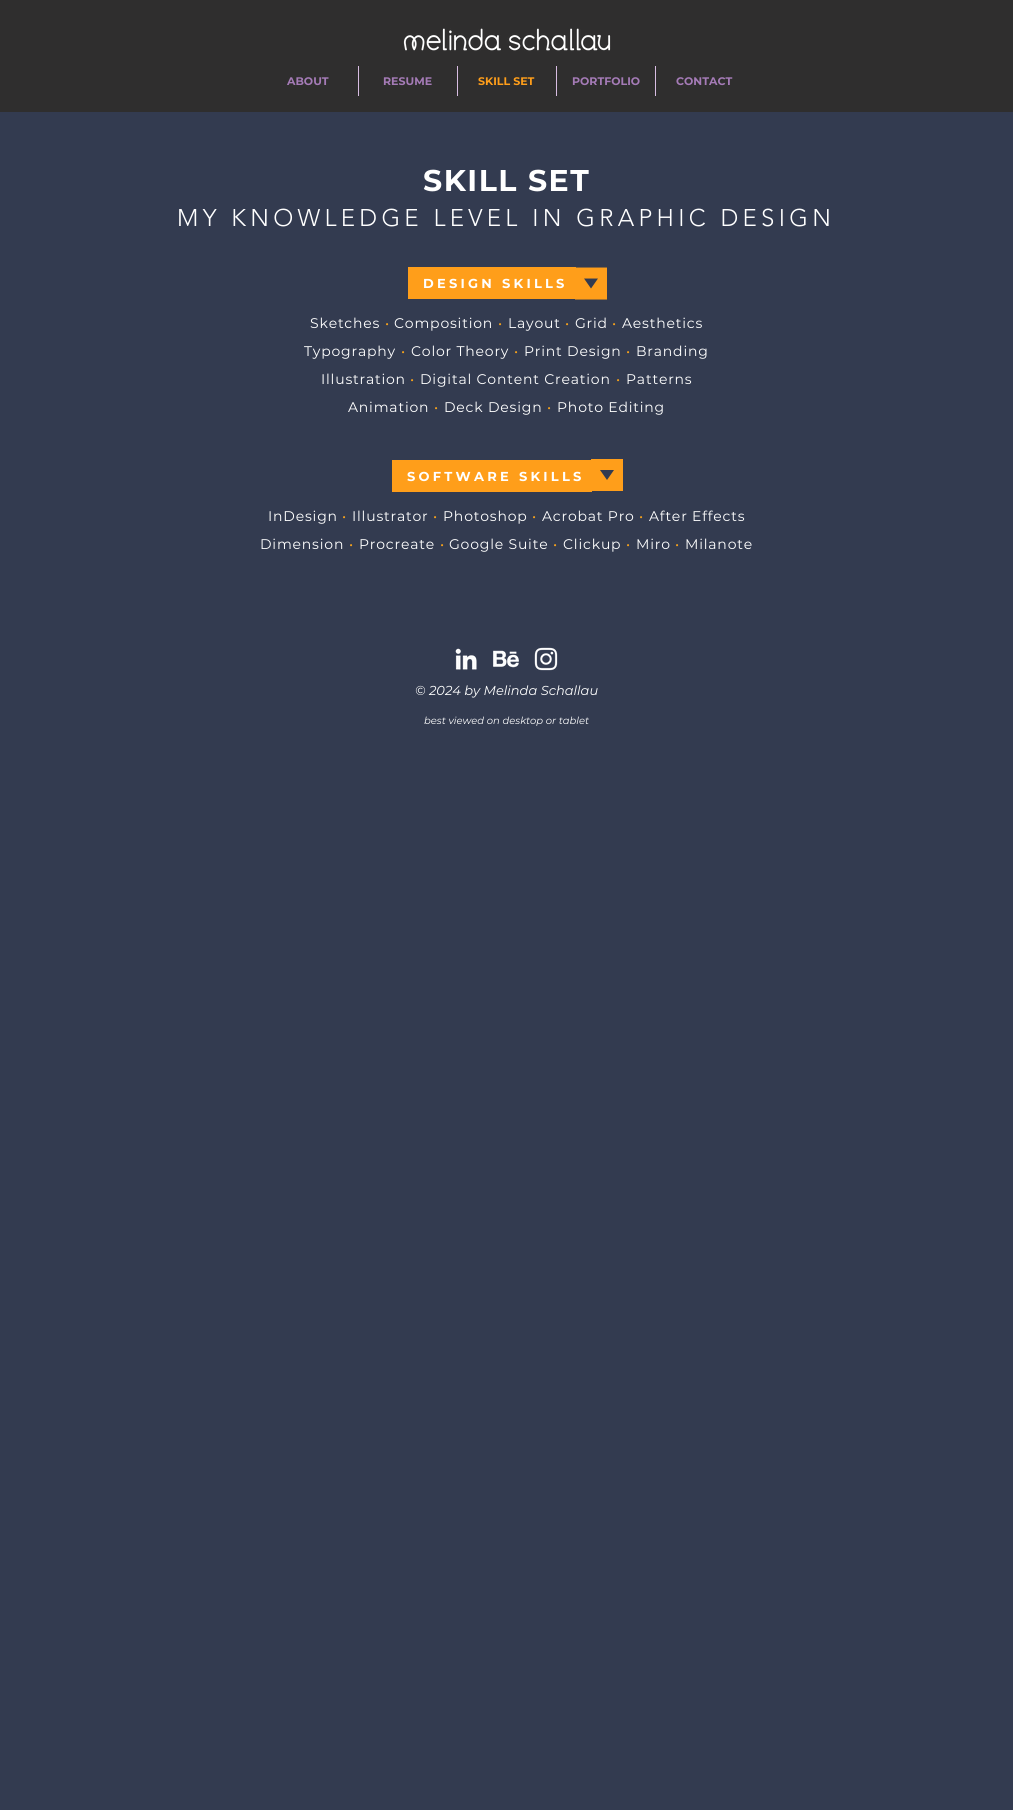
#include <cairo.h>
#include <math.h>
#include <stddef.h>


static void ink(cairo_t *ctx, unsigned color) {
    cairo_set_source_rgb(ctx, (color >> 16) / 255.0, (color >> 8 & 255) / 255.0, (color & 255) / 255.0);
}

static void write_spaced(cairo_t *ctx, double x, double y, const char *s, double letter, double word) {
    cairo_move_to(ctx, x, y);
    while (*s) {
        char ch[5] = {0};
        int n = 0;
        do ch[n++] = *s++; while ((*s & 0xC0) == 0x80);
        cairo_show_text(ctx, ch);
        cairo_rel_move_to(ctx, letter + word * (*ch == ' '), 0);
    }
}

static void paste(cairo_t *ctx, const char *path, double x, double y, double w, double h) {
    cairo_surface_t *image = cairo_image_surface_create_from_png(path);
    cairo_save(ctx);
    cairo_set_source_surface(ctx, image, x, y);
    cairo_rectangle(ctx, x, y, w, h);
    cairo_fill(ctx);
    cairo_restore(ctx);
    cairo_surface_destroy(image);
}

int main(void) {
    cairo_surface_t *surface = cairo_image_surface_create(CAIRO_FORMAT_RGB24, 1013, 1810);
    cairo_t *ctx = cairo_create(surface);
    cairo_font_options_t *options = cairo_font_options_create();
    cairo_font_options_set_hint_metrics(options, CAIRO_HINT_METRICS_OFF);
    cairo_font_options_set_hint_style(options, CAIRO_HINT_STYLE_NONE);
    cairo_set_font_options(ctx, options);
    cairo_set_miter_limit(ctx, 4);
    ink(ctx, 0x333B50);
    cairo_paint(ctx);
    ink(ctx, 0x2F2E2E);
    cairo_rectangle(ctx, 0, 0, 1013, 112);
    cairo_fill(ctx);
    paste(ctx, "media/1.png", 403, 28, 208, 23);
    cairo_select_font_face(ctx, "Montserrat", CAIRO_FONT_SLANT_NORMAL, CAIRO_FONT_WEIGHT_BOLD);
    cairo_set_font_size(ctx, 11);
    ink(ctx, 0xA57BB7);
    cairo_move_to(ctx, 287, 85);
    cairo_show_text(ctx, "ABOUT");
    ink(ctx, 0xD8BDE2);
    cairo_rectangle(ctx, 358, 66, 1, 30);
    cairo_fill(ctx);
    ink(ctx, 0xA57BB7);
    cairo_move_to(ctx, 383, 85);
    cairo_show_text(ctx, "RESUME");
    ink(ctx, 0xD8BDE2);
    cairo_rectangle(ctx, 457, 66, 1, 30);
    cairo_fill(ctx);
    ink(ctx, 0xFF9E1A);
    cairo_move_to(ctx, 478, 85);
    cairo_show_text(ctx, "SKILL SET");
    ink(ctx, 0xD8BDE2);
    cairo_rectangle(ctx, 556, 66, 1, 30);
    cairo_fill(ctx);
    ink(ctx, 0xA57BB7);
    cairo_move_to(ctx, 572, 85);
    cairo_show_text(ctx, "PORTFOLIO");
    ink(ctx, 0xD8BDE2);
    cairo_rectangle(ctx, 655, 66, 1, 30);
    cairo_fill(ctx);
    ink(ctx, 0xA57BB7);
    cairo_move_to(ctx, 676, 85);
    cairo_show_text(ctx, "CONTACT");
    cairo_set_font_size(ctx, 30);
    ink(ctx, 0xFFFFFF);
    write_spaced(ctx, 423, 191, "SKILL SET", 1.5, 0);
    cairo_select_font_face(ctx, "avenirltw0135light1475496 Light", CAIRO_FONT_SLANT_NORMAL, CAIRO_FONT_WEIGHT_NORMAL);
    cairo_set_font_size(ctx, 24);
    write_spaced(ctx, 177, 226, "MY KNOWLEDGE LEVEL IN GRAPHIC DESIGN", 4.3, 0);
    ink(ctx, 0xFF9E1A);
    cairo_rectangle(ctx, 408, 267, 168, 32);
    cairo_fill(ctx);
    cairo_new_path(ctx);
    cairo_move_to(ctx, 607, 299.5);
    cairo_line_to(ctx, 607, 267.5);
    cairo_line_to(ctx, 575, 267.5);
    cairo_line_to(ctx, 575, 299.5);
    cairo_close_path(ctx);
    cairo_move_to(ctx, 598, 278.5);
    cairo_line_to(ctx, 591, 288.5);
    cairo_line_to(ctx, 584, 278.5);
    cairo_close_path(ctx);
    cairo_fill(ctx);
    cairo_select_font_face(ctx, "Montserrat", CAIRO_FONT_SLANT_NORMAL, CAIRO_FONT_WEIGHT_BOLD);
    cairo_set_font_size(ctx, 13);
    ink(ctx, 0xFFFFFF);
    write_spaced(ctx, 423, 288, "DESIGN SKILLS", 3.25, 0);
    cairo_select_font_face(ctx, "Montserrat", CAIRO_FONT_SLANT_NORMAL, CAIRO_FONT_WEIGHT_NORMAL);
    cairo_set_font_size(ctx, 14);
    write_spaced(ctx, 310, 328, "Sketches", 0.8, 0);
    ink(ctx, 0xF9A31A);
    write_spaced(ctx, 385, 328, "•", 0.8, 0);
    ink(ctx, 0xFFFFFF);
    write_spaced(ctx, 394, 328, "Composition", 0.8, 0);
    ink(ctx, 0xF9A31A);
    write_spaced(ctx, 498, 328, "•", 0.8, 0);
    ink(ctx, 0xFFFFFF);
    write_spaced(ctx, 508, 328, "Layout", 0.8, 0);
    ink(ctx, 0xF9A31A);
    write_spaced(ctx, 565, 328, "•", 0.8, 0);
    ink(ctx, 0xFFFFFF);
    write_spaced(ctx, 575, 328, "Grid", 0.8, 0);
    ink(ctx, 0xF9A31A);
    write_spaced(ctx, 612, 328, "•", 0.8, 0);
    ink(ctx, 0xFFFFFF);
    write_spaced(ctx, 622, 328, "Aesthetics", 0.8, 0);
    write_spaced(ctx, 304, 356, "Typography", 0.8, 0);
    ink(ctx, 0xF9A31A);
    write_spaced(ctx, 401, 356, "•", 0.8, 0);
    ink(ctx, 0xFFFFFF);
    write_spaced(ctx, 411, 356, "Color Theory", 0.8, 0);
    ink(ctx, 0xF9A31A);
    write_spaced(ctx, 514, 356, "•", 0.8, 0);
    ink(ctx, 0xFFFFFF);
    write_spaced(ctx, 524, 356, "Print Design", 0.8, 0);
    ink(ctx, 0xF9A31A);
    write_spaced(ctx, 626, 356, "•", 0.8, 0);
    ink(ctx, 0xFFFFFF);
    write_spaced(ctx, 636, 356, "Branding", 0.8, 0);
    write_spaced(ctx, 321, 384, "Illustration", 0.8, 0);
    ink(ctx, 0xF9A31A);
    write_spaced(ctx, 410, 384, "•", 0.8, 0);
    ink(ctx, 0xFFFFFF);
    write_spaced(ctx, 420, 384, "Digital Content Creation", 0.8, 0);
    ink(ctx, 0xF9A31A);
    write_spaced(ctx, 616, 384, "•", 0.8, 0);
    ink(ctx, 0xFFFFFF);
    write_spaced(ctx, 626, 384, "Patterns", 0.8, 0);
    write_spaced(ctx, 348, 412, "Animation", 0.8, 0);
    ink(ctx, 0xF9A31A);
    write_spaced(ctx, 434, 412, "•", 0.8, 0);
    ink(ctx, 0xFFFFFF);
    write_spaced(ctx, 444, 412, "Deck Design", 0.8, 0);
    ink(ctx, 0xF9A31A);
    write_spaced(ctx, 547, 412, "•", 0.8, 0);
    ink(ctx, 0xFFFFFF);
    write_spaced(ctx, 557, 412, "Photo Editing", 0.8, 0);
    ink(ctx, 0xFF9E1A);
    cairo_rectangle(ctx, 392, 460, 200, 32);
    cairo_fill(ctx);
    cairo_new_path(ctx);
    cairo_move_to(ctx, 623, 491);
    cairo_line_to(ctx, 623, 459);
    cairo_line_to(ctx, 591, 459);
    cairo_line_to(ctx, 591, 491);
    cairo_close_path(ctx);
    cairo_move_to(ctx, 614, 470);
    cairo_line_to(ctx, 607, 480);
    cairo_line_to(ctx, 600, 470);
    cairo_close_path(ctx);
    cairo_fill(ctx);
    cairo_select_font_face(ctx, "Montserrat", CAIRO_FONT_SLANT_NORMAL, CAIRO_FONT_WEIGHT_BOLD);
    cairo_set_font_size(ctx, 13);
    ink(ctx, 0xFFFFFF);
    write_spaced(ctx, 407, 481, "SOFTWARE SKILLS", 3.25, 0);
    cairo_select_font_face(ctx, "Montserrat", CAIRO_FONT_SLANT_NORMAL, CAIRO_FONT_WEIGHT_NORMAL);
    cairo_set_font_size(ctx, 14);
    write_spaced(ctx, 268, 521, "InDesign", 0.8, 0);
    ink(ctx, 0xF9A31A);
    write_spaced(ctx, 342, 521, "•", 0.8, 0);
    ink(ctx, 0xFFFFFF);
    write_spaced(ctx, 352, 521, "Illustrator", 0.8, 0);
    ink(ctx, 0xF9A31A);
    write_spaced(ctx, 433, 521, "•", 0.8, 0);
    ink(ctx, 0xFFFFFF);
    write_spaced(ctx, 443, 521, "Photoshop", 0.8, 0);
    ink(ctx, 0xF9A31A);
    write_spaced(ctx, 532, 521, "•", 0.8, 0);
    ink(ctx, 0xFFFFFF);
    write_spaced(ctx, 542, 521, "Acrobat Pro", 0.8, 0);
    ink(ctx, 0xF9A31A);
    write_spaced(ctx, 639, 521, "•", 0.8, 0);
    ink(ctx, 0xFFFFFF);
    write_spaced(ctx, 649, 521, "After Effects", 0.8, 0);
    write_spaced(ctx, 260, 549, "Dimension", 0.8, 0);
    ink(ctx, 0xF9A31A);
    write_spaced(ctx, 349, 549, "•", 0.8, 0);
    ink(ctx, 0xFFFFFF);
    write_spaced(ctx, 359, 549, "Procreate", 0.8, 0);
    ink(ctx, 0xF9A31A);
    write_spaced(ctx, 440, 549, "•", 0.8, 0);
    ink(ctx, 0xFFFFFF);
    write_spaced(ctx, 449, 549, "Google Suite", 0.8, 0);
    ink(ctx, 0xF9A31A);
    write_spaced(ctx, 553, 549, "•", 0.8, 0);
    ink(ctx, 0xFFFFFF);
    write_spaced(ctx, 563, 549, "Clickup", 0.8, 0);
    ink(ctx, 0xF9A31A);
    write_spaced(ctx, 626, 549, "•", 0.8, 0);
    ink(ctx, 0xFFFFFF);
    write_spaced(ctx, 636, 549, "Miro", 0.8, 0);
    ink(ctx, 0xF9A31A);
    write_spaced(ctx, 675, 549, "•", 0.8, 0);
    ink(ctx, 0xFFFFFF);
    write_spaced(ctx, 685, 549, "Milanote", 0.8, 0);
    paste(ctx, "media/2.png", 455, 648, 22, 22);
    paste(ctx, "media/3.png", 493, 650, 26, 18);
    paste(ctx, "media/4.png", 534, 647, 24, 24);
    cairo_select_font_face(ctx, "Montserrat", CAIRO_FONT_SLANT_ITALIC, CAIRO_FONT_WEIGHT_NORMAL);
    cairo_set_font_size(ctx, 13);
    cairo_move_to(ctx, 415, 695);
    cairo_show_text(ctx, "© 2024 by Melinda Schallau");
    cairo_set_font_size(ctx, 10);
    cairo_move_to(ctx, 424, 724);
    cairo_show_text(ctx, "best viewed on desktop or tablet");
    cairo_surface_write_to_png(surface, "image.png");
    cairo_font_options_destroy(options);
    cairo_destroy(ctx);
    cairo_surface_destroy(surface);
    return 0;
}
